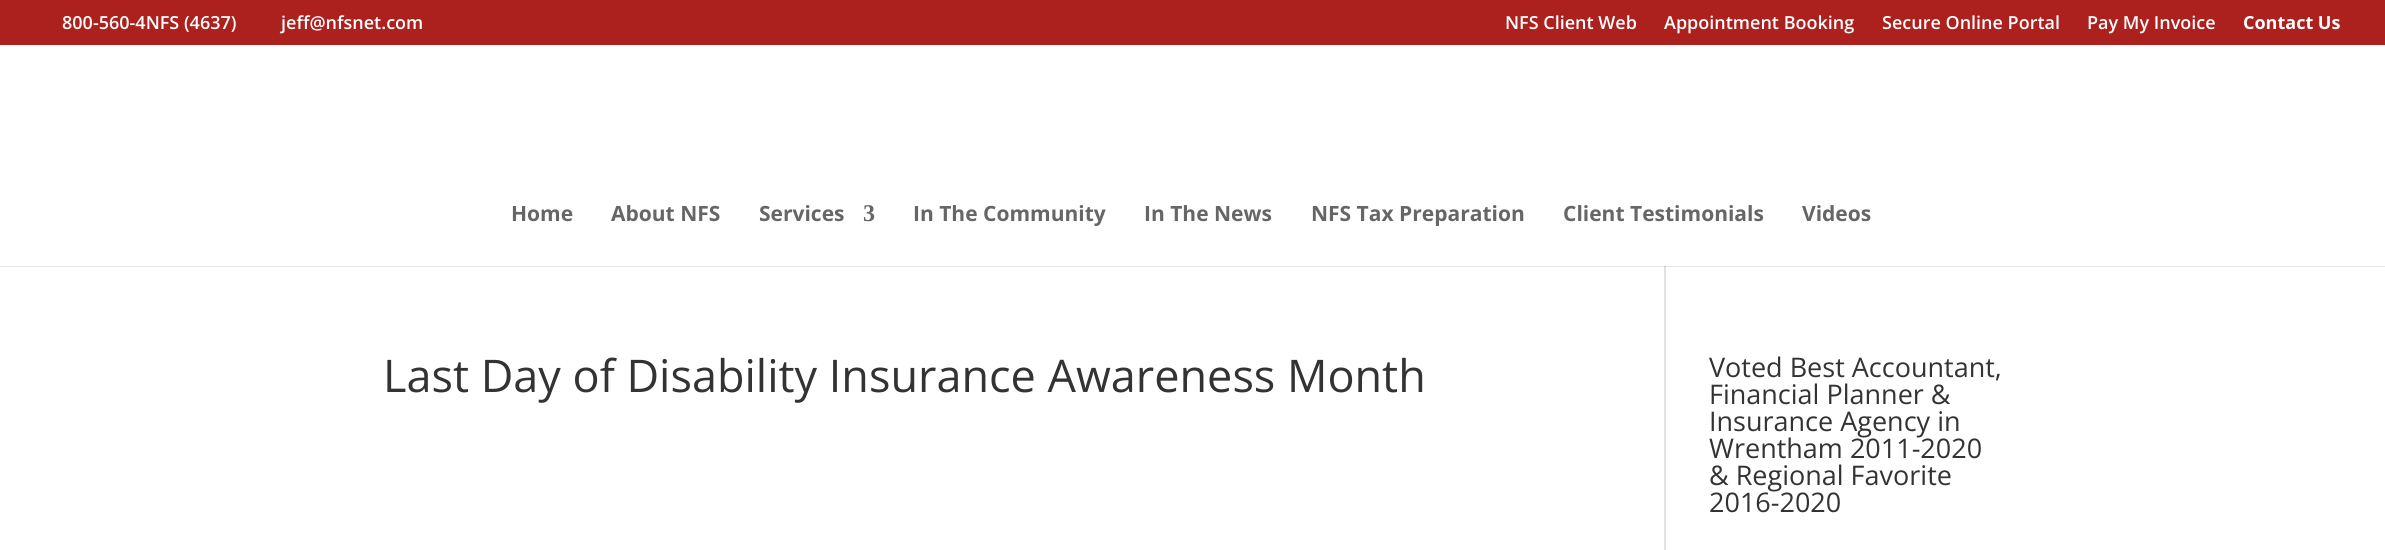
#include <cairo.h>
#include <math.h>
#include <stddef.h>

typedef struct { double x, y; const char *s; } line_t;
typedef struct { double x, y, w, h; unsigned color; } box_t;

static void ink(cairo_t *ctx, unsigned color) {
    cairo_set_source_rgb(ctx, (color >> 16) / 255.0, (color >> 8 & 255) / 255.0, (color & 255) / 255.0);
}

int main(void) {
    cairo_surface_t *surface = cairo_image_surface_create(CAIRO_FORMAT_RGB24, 2385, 550);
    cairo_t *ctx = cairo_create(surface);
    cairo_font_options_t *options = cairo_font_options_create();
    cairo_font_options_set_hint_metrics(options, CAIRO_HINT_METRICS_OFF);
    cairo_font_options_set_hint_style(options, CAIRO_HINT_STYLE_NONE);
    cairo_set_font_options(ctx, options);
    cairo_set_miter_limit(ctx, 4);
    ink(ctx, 0xFFFFFF);
    cairo_paint(ctx);
    ink(ctx, 0xAC211E);
    cairo_rectangle(ctx, 0, 0, 2385, 45);
    cairo_fill(ctx);
    cairo_select_font_face(ctx, "Open Sans SemiBold", CAIRO_FONT_SLANT_NORMAL, CAIRO_FONT_WEIGHT_NORMAL);
    cairo_set_font_size(ctx, 18);
    ink(ctx, 0xFFFFFF);
    {
        static const line_t items[] = {
            {62, 29, "800-560-4NFS (4637)"},
            {281, 29, "jeff@nfsnet.com"},
            {1505, 29, "NFS Client Web"},
            {1664, 29, "Appointment Booking"},
            {1882, 29, "Secure Online Portal"},
            {2087, 29, "Pay My Invoice"},
        };
        for (size_t i = 0; i < sizeof items / sizeof *items; i++) {
            cairo_move_to(ctx, items[i].x, items[i].y);
            cairo_show_text(ctx, items[i].s);
        }
    }
    cairo_select_font_face(ctx, "Open Sans", CAIRO_FONT_SLANT_NORMAL, CAIRO_FONT_WEIGHT_BOLD);
    cairo_move_to(ctx, 2243, 29);
    cairo_show_text(ctx, "Contact Us");
    cairo_set_font_size(ctx, 21);
    ink(ctx, 0x666666);
    {
        static const line_t items[] = {
            {511, 221, "Home"},
            {611, 221, "About NFS"},
            {759, 221, "Services"},
        };
        for (size_t i = 0; i < sizeof items / sizeof *items; i++) {
            cairo_move_to(ctx, items[i].x, items[i].y);
            cairo_show_text(ctx, items[i].s);
        }
    }
    cairo_select_font_face(ctx, "Liberation Serif", CAIRO_FONT_SLANT_NORMAL, CAIRO_FONT_WEIGHT_BOLD);
    cairo_set_font_size(ctx, 24);
    cairo_move_to(ctx, 863, 221);
    cairo_show_text(ctx, "3");
    cairo_select_font_face(ctx, "Open Sans", CAIRO_FONT_SLANT_NORMAL, CAIRO_FONT_WEIGHT_BOLD);
    cairo_set_font_size(ctx, 21);
    {
        static const line_t items[] = {
            {913, 221, "In The Community"},
            {1144, 221, "In The News"},
            {1311, 221, "NFS Tax Preparation"},
            {1563, 221, "Client Testimonials"},
            {1802, 221, "Videos"},
        };
        for (size_t i = 0; i < sizeof items / sizeof *items; i++) {
            cairo_move_to(ctx, items[i].x, items[i].y);
            cairo_show_text(ctx, items[i].s);
        }
    }
    {
        static const box_t items[] = {
            {0, 266, 2385, 1, 0xE6E6E6},
            {1664, 266, 2, 284, 0xE2E2E2},
            {1664, 266, 2, 1, 0xCBCBCB},
        };
        for (size_t i = 0; i < sizeof items / sizeof *items; i++) {
            ink(ctx, items[i].color);
            cairo_rectangle(ctx, items[i].x, items[i].y, items[i].w, items[i].h);
            cairo_fill(ctx);
        }
    }
    cairo_select_font_face(ctx, "Open Sans", CAIRO_FONT_SLANT_NORMAL, CAIRO_FONT_WEIGHT_NORMAL);
    cairo_set_font_size(ctx, 45);
    ink(ctx, 0x333333);
    cairo_move_to(ctx, 383, 392);
    cairo_show_text(ctx, "Last Day of Disability Insurance Awareness Month");
    cairo_set_font_size(ctx, 27);
    {
        static const line_t items[] = {
            {1709, 377, "Voted Best Accountant,"},
            {1709, 404, "Financial Planner &"},
            {1709, 431, "Insurance Agency in"},
            {1709, 458, "Wrentham 2011-2020"},
            {1709, 485, "& Regional Favorite"},
            {1709, 512, "2016-2020"},
        };
        for (size_t i = 0; i < sizeof items / sizeof *items; i++) {
            cairo_move_to(ctx, items[i].x, items[i].y);
            cairo_show_text(ctx, items[i].s);
        }
    }
    cairo_surface_write_to_png(surface, "image.png");
    cairo_font_options_destroy(options);
    cairo_destroy(ctx);
    cairo_surface_destroy(surface);
    return 0;
}
